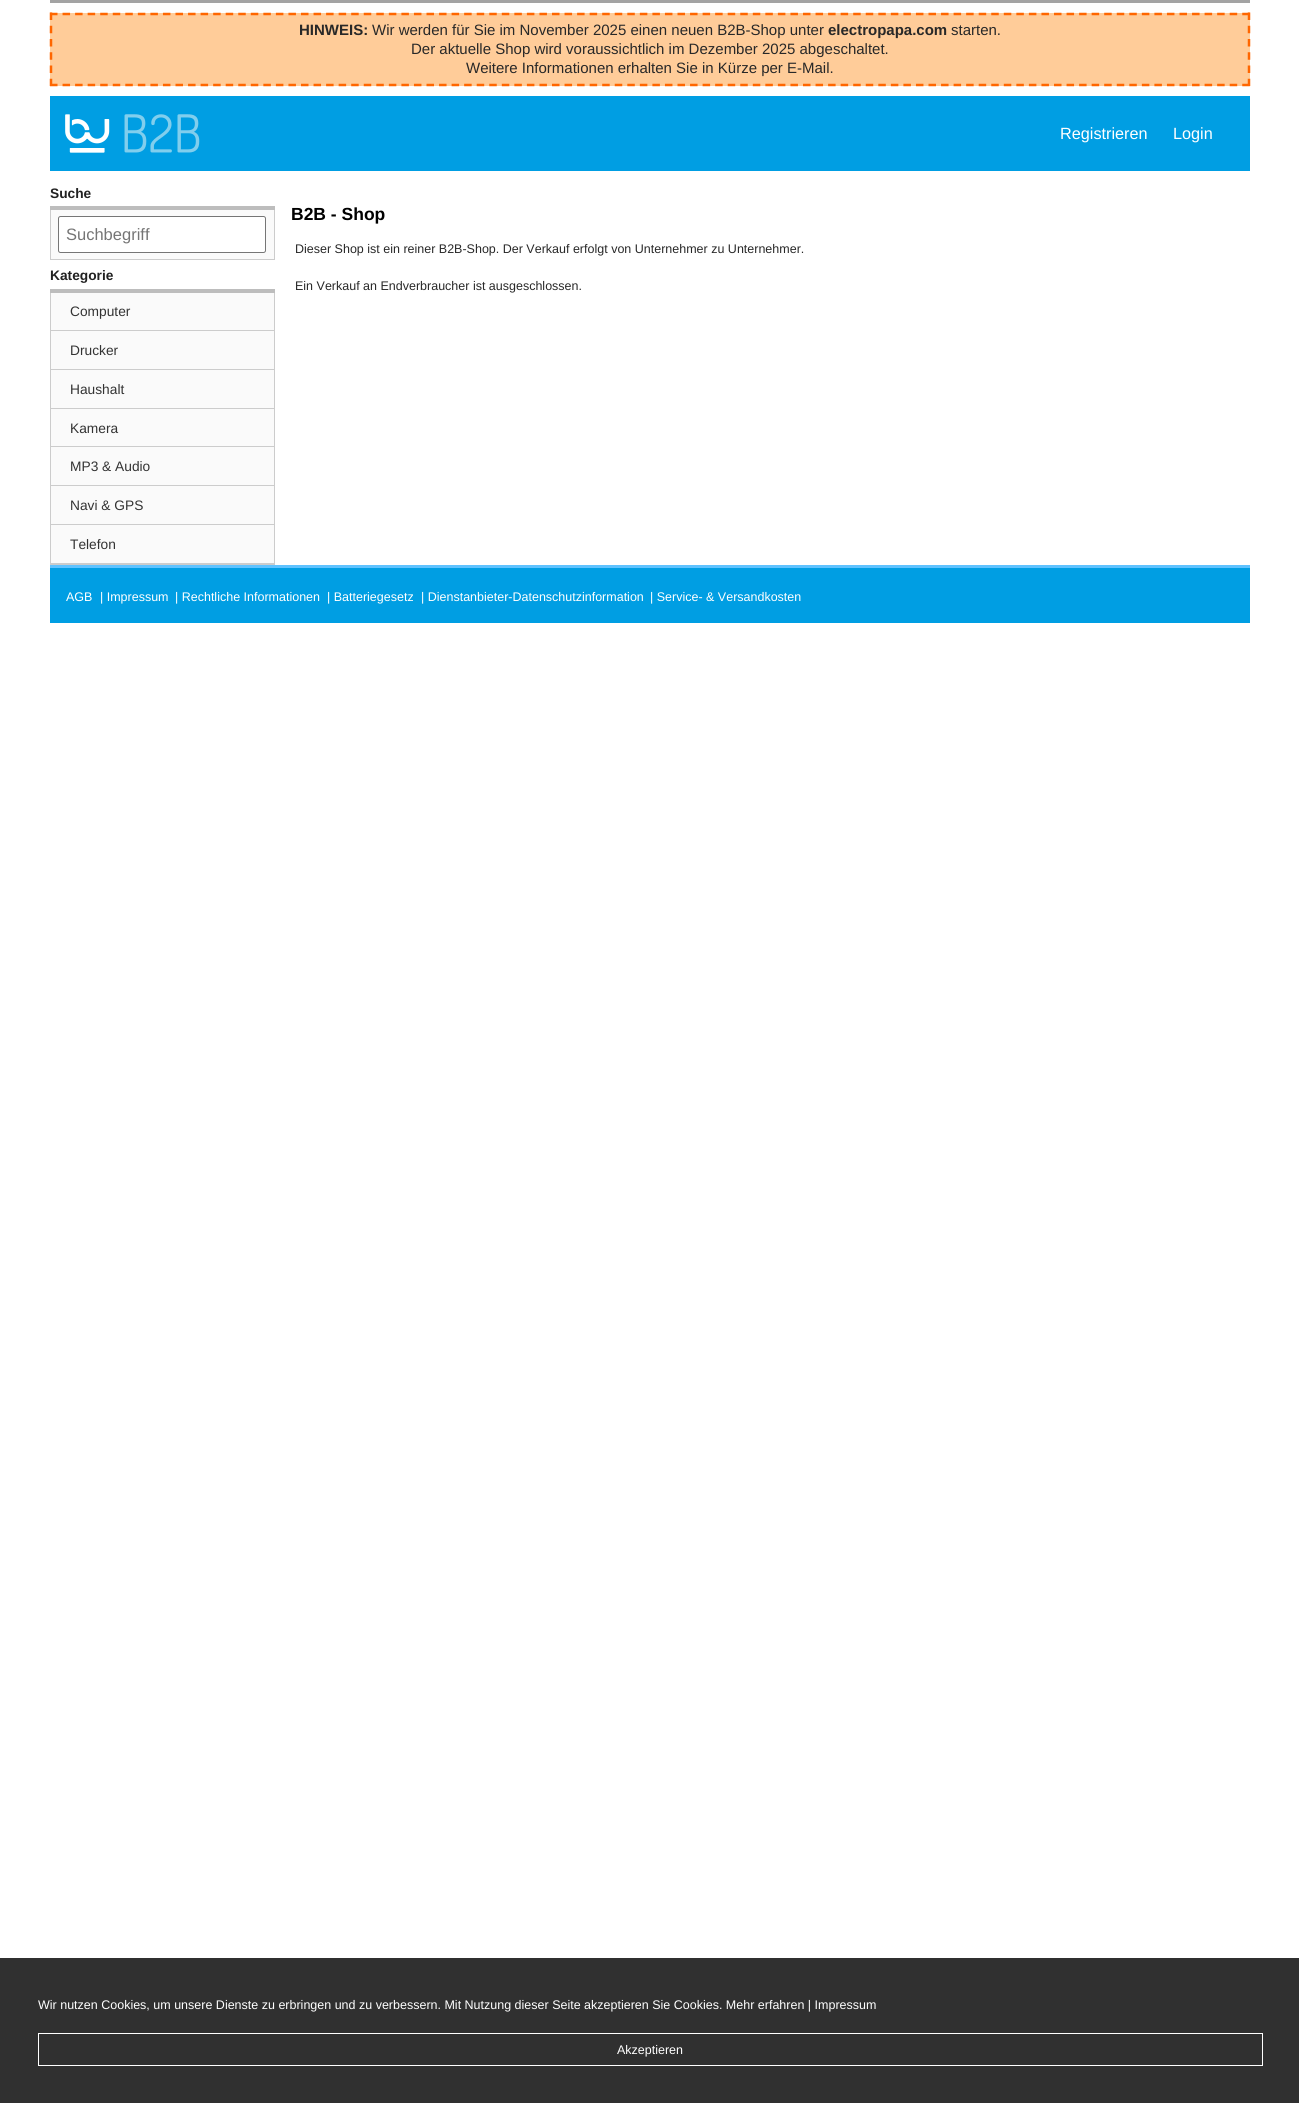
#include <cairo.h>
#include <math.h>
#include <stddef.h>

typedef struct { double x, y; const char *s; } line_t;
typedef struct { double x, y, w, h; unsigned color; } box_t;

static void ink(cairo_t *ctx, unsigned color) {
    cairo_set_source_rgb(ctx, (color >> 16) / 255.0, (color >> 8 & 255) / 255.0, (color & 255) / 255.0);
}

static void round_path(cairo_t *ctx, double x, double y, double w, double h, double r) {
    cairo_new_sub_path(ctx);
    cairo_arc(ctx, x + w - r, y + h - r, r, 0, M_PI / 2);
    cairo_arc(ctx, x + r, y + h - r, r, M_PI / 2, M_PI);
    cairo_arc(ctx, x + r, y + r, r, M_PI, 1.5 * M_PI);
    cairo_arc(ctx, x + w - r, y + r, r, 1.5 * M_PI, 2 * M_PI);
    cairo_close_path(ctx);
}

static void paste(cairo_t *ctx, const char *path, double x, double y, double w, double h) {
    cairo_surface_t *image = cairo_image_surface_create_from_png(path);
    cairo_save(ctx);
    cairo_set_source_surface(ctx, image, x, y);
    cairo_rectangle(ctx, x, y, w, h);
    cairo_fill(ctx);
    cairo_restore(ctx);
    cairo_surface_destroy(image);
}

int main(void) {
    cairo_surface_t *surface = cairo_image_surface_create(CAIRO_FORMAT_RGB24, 1299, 2103);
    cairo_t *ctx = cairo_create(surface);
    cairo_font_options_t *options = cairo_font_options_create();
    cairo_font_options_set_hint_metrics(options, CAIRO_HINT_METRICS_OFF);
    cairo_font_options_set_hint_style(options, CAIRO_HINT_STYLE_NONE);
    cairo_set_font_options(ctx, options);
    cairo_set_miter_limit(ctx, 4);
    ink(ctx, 0xFFFFFF);
    cairo_paint(ctx);
    ink(ctx, 0xA3A3A3);
    cairo_rectangle(ctx, 50, 0, 1200, 3);
    cairo_fill(ctx);
    ink(ctx, 0xFFCC99);
    cairo_rectangle(ctx, 50, 13, 1200, 73);
    cairo_fill(ctx);
    cairo_new_path(ctx);
    cairo_move_to(ctx, 50, 14);
    cairo_line_to(ctx, 1250, 14);
    ink(ctx, 0xFF6600);
    cairo_set_line_width(ctx, 2.5);
    cairo_set_dash(ctx, (double[]){7.5, 5.05}, 2, 0);
    cairo_stroke(ctx);
    cairo_new_path(ctx);
    cairo_move_to(ctx, 1249, 12.5);
    cairo_line_to(ctx, 1249, 86);
    cairo_set_dash(ctx, (double[]){7.5, 5.75}, 2, 0);
    cairo_stroke(ctx);
    cairo_new_path(ctx);
    cairo_move_to(ctx, 50, 85);
    cairo_line_to(ctx, 1250, 85);
    cairo_set_dash(ctx, (double[]){7.5, 5.05}, 2, 0);
    cairo_stroke(ctx);
    cairo_new_path(ctx);
    cairo_move_to(ctx, 51, 12.5);
    cairo_line_to(ctx, 51, 86);
    cairo_set_dash(ctx, (double[]){7.5, 5.75}, 2, 0);
    cairo_stroke(ctx);
    cairo_select_font_face(ctx, "Liberation Sans", CAIRO_FONT_SLANT_NORMAL, CAIRO_FONT_WEIGHT_BOLD);
    cairo_set_font_size(ctx, 15);
    ink(ctx, 0x282828);
    cairo_move_to(ctx, 299, 35);
    cairo_show_text(ctx, "HINWEIS:");
    cairo_select_font_face(ctx, "Liberation Sans", CAIRO_FONT_SLANT_NORMAL, CAIRO_FONT_WEIGHT_NORMAL);
    cairo_move_to(ctx, 372, 35);
    cairo_show_text(ctx, "Wir werden für Sie im November 2025 einen neuen B2B-Shop unter");
    cairo_select_font_face(ctx, "Liberation Sans", CAIRO_FONT_SLANT_NORMAL, CAIRO_FONT_WEIGHT_BOLD);
    cairo_move_to(ctx, 828, 35);
    cairo_show_text(ctx, "electropapa.com");
    cairo_select_font_face(ctx, "Liberation Sans", CAIRO_FONT_SLANT_NORMAL, CAIRO_FONT_WEIGHT_NORMAL);
    {
        static const line_t items[] = {
            {951, 35, "starten."},
            {411, 54, "Der aktuelle Shop wird voraussichtlich im Dezember 2025 abgeschaltet."},
            {466, 73, "Weitere Informationen erhalten Sie in Kürze per E-Mail."},
        };
        for (size_t i = 0; i < sizeof items / sizeof *items; i++) {
            cairo_move_to(ctx, items[i].x, items[i].y);
            cairo_show_text(ctx, items[i].s);
        }
    }
    ink(ctx, 0x009EE3);
    cairo_rectangle(ctx, 50, 96, 1200, 75);
    cairo_fill(ctx);
    paste(ctx, "media/1.png", 65, 114, 135, 39);
    cairo_set_font_size(ctx, 16.25);
    ink(ctx, 0xFFFFFF);
    cairo_move_to(ctx, 1060, 139);
    cairo_show_text(ctx, "Registrieren");
    cairo_move_to(ctx, 1173, 139);
    cairo_show_text(ctx, "Login");
    cairo_select_font_face(ctx, "Liberation Sans", CAIRO_FONT_SLANT_NORMAL, CAIRO_FONT_WEIGHT_BOLD);
    cairo_set_font_size(ctx, 13.75);
    ink(ctx, 0x212121);
    cairo_move_to(ctx, 50, 198);
    cairo_show_text(ctx, "Suche");
    {
        static const box_t items[] = {
            {50, 206, 225, 4, 0xBDBDBD},
            {51, 210, 223, 49, 0xFAFAFA},
            {274, 210, 1, 50, 0xCCCCCC},
            {50, 259, 225, 1, 0xCCCCCC},
            {50, 210, 1, 50, 0xCCCCCC},
        };
        for (size_t i = 0; i < sizeof items / sizeof *items; i++) {
            ink(ctx, items[i].color);
            cairo_rectangle(ctx, items[i].x, items[i].y, items[i].w, items[i].h);
            cairo_fill(ctx);
        }
    }
    ink(ctx, 0xFFFFFF);
    round_path(ctx, 58.5, 216.5, 207, 36, 2);
    cairo_fill_preserve(ctx);
    ink(ctx, 0x767676);
    cairo_set_line_width(ctx, 1);
    cairo_set_dash(ctx, NULL, 0, 0);
    cairo_stroke(ctx);
    cairo_select_font_face(ctx, "Liberation Sans", CAIRO_FONT_SLANT_NORMAL, CAIRO_FONT_WEIGHT_NORMAL);
    cairo_set_font_size(ctx, 16.5);
    ink(ctx, 0x757575);
    cairo_move_to(ctx, 66, 240);
    cairo_show_text(ctx, "Suchbegriff");
    cairo_select_font_face(ctx, "Liberation Sans", CAIRO_FONT_SLANT_NORMAL, CAIRO_FONT_WEIGHT_BOLD);
    cairo_set_font_size(ctx, 13.75);
    ink(ctx, 0x212121);
    cairo_move_to(ctx, 50, 280);
    cairo_show_text(ctx, "Kategorie");
    {
        static const box_t items[] = {
            {50, 289, 225, 4, 0xBDBDBD},
            {274, 293, 1, 272, 0xCCCCCC},
            {50, 564, 225, 1, 0xCCCCCC},
            {50, 293, 1, 272, 0xCCCCCC},
            {51, 293, 223, 37, 0xFAFAFA},
            {51, 330, 223, 1, 0xCCCCCC},
        };
        for (size_t i = 0; i < sizeof items / sizeof *items; i++) {
            ink(ctx, items[i].color);
            cairo_rectangle(ctx, items[i].x, items[i].y, items[i].w, items[i].h);
            cairo_fill(ctx);
        }
    }
    cairo_select_font_face(ctx, "Liberation Sans", CAIRO_FONT_SLANT_NORMAL, CAIRO_FONT_WEIGHT_NORMAL);
    ink(ctx, 0x333333);
    cairo_move_to(ctx, 70, 316);
    cairo_show_text(ctx, "Computer");
    ink(ctx, 0xFAFAFA);
    cairo_rectangle(ctx, 51, 331, 223, 38);
    cairo_fill(ctx);
    ink(ctx, 0xCCCCCC);
    cairo_rectangle(ctx, 51, 369, 223, 1);
    cairo_fill(ctx);
    ink(ctx, 0x333333);
    cairo_move_to(ctx, 70, 355);
    cairo_show_text(ctx, "Drucker");
    ink(ctx, 0xFAFAFA);
    cairo_rectangle(ctx, 51, 370, 223, 38);
    cairo_fill(ctx);
    ink(ctx, 0xCCCCCC);
    cairo_rectangle(ctx, 51, 408, 223, 1);
    cairo_fill(ctx);
    ink(ctx, 0x333333);
    cairo_move_to(ctx, 70, 394);
    cairo_show_text(ctx, "Haushalt");
    ink(ctx, 0xFAFAFA);
    cairo_rectangle(ctx, 51, 409, 223, 76);
    cairo_fill(ctx);
    ink(ctx, 0xCCCCCC);
    cairo_rectangle(ctx, 51, 446, 223, 1);
    cairo_fill(ctx);
    ink(ctx, 0x333333);
    cairo_move_to(ctx, 70, 433);
    cairo_show_text(ctx, "Kamera");
    ink(ctx, 0xCCCCCC);
    cairo_rectangle(ctx, 51, 485, 223, 1);
    cairo_fill(ctx);
    ink(ctx, 0x333333);
    cairo_move_to(ctx, 70, 471);
    cairo_show_text(ctx, "MP3 & Audio");
    ink(ctx, 0xFAFAFA);
    cairo_rectangle(ctx, 51, 486, 223, 38);
    cairo_fill(ctx);
    ink(ctx, 0xCCCCCC);
    cairo_rectangle(ctx, 51, 524, 223, 1);
    cairo_fill(ctx);
    ink(ctx, 0x333333);
    cairo_move_to(ctx, 70, 510);
    cairo_show_text(ctx, "Navi & GPS");
    ink(ctx, 0xFAFAFA);
    cairo_rectangle(ctx, 51, 525, 223, 38);
    cairo_fill(ctx);
    ink(ctx, 0xCCCCCC);
    cairo_rectangle(ctx, 51, 563, 223, 1);
    cairo_fill(ctx);
    ink(ctx, 0x333333);
    cairo_move_to(ctx, 70, 549);
    cairo_show_text(ctx, "Telefon");
    cairo_select_font_face(ctx, "Liberation Sans", CAIRO_FONT_SLANT_NORMAL, CAIRO_FONT_WEIGHT_BOLD);
    cairo_set_font_size(ctx, 17.5);
    ink(ctx, 0x000000);
    cairo_move_to(ctx, 291, 220);
    cairo_show_text(ctx, "B2B - Shop");
    cairo_select_font_face(ctx, "Liberation Sans", CAIRO_FONT_SLANT_NORMAL, CAIRO_FONT_WEIGHT_NORMAL);
    cairo_set_font_size(ctx, 12.5);
    ink(ctx, 0x282828);
    cairo_move_to(ctx, 295, 253);
    cairo_show_text(ctx, "Dieser Shop ist ein reiner B2B-Shop. Der Verkauf erfolgt von Unternehmer zu Unternehmer.");
    cairo_move_to(ctx, 295, 290);
    cairo_show_text(ctx, "Ein Verkauf an Endverbraucher ist ausgeschlossen.");
    ink(ctx, 0x009EE3);
    cairo_rectangle(ctx, 50, 568, 1200, 55);
    cairo_fill(ctx);
    ink(ctx, 0x5FC2FF);
    cairo_rectangle(ctx, 50, 565, 1200, 3);
    cairo_fill(ctx);
    ink(ctx, 0xFFFFFF);
    {
        static const line_t items[] = {
            {66, 601, "AGB"},
            {100, 601, "| Impressum"},
            {175, 601, "| Rechtliche Informationen"},
            {327, 601, "| Batteriegesetz"},
            {421, 601, "| Dienstanbieter-Datenschutzinformation"},
            {650, 601, "| Service- & Versandkosten"},
        };
        for (size_t i = 0; i < sizeof items / sizeof *items; i++) {
            cairo_move_to(ctx, items[i].x, items[i].y);
            cairo_show_text(ctx, items[i].s);
        }
    }
    ink(ctx, 0x303030);
    cairo_rectangle(ctx, 0, 1958, 1299, 145);
    cairo_fill(ctx);
    ink(ctx, 0xFFFFFF);
    cairo_move_to(ctx, 38, 2009);
    cairo_show_text(ctx, "Wir nutzen Cookies, um unsere Dienste zu erbringen und zu verbessern. Mit Nutzung dieser Seite akzeptieren Sie Cookies. Mehr erfahren | Impressum");
    cairo_rectangle(ctx, 38.5, 2033.5, 1224, 32);
    cairo_stroke(ctx);
    cairo_move_to(ctx, 617, 2054);
    cairo_show_text(ctx, "Akzeptieren");
    cairo_surface_write_to_png(surface, "image.png");
    cairo_font_options_destroy(options);
    cairo_destroy(ctx);
    cairo_surface_destroy(surface);
    return 0;
}
